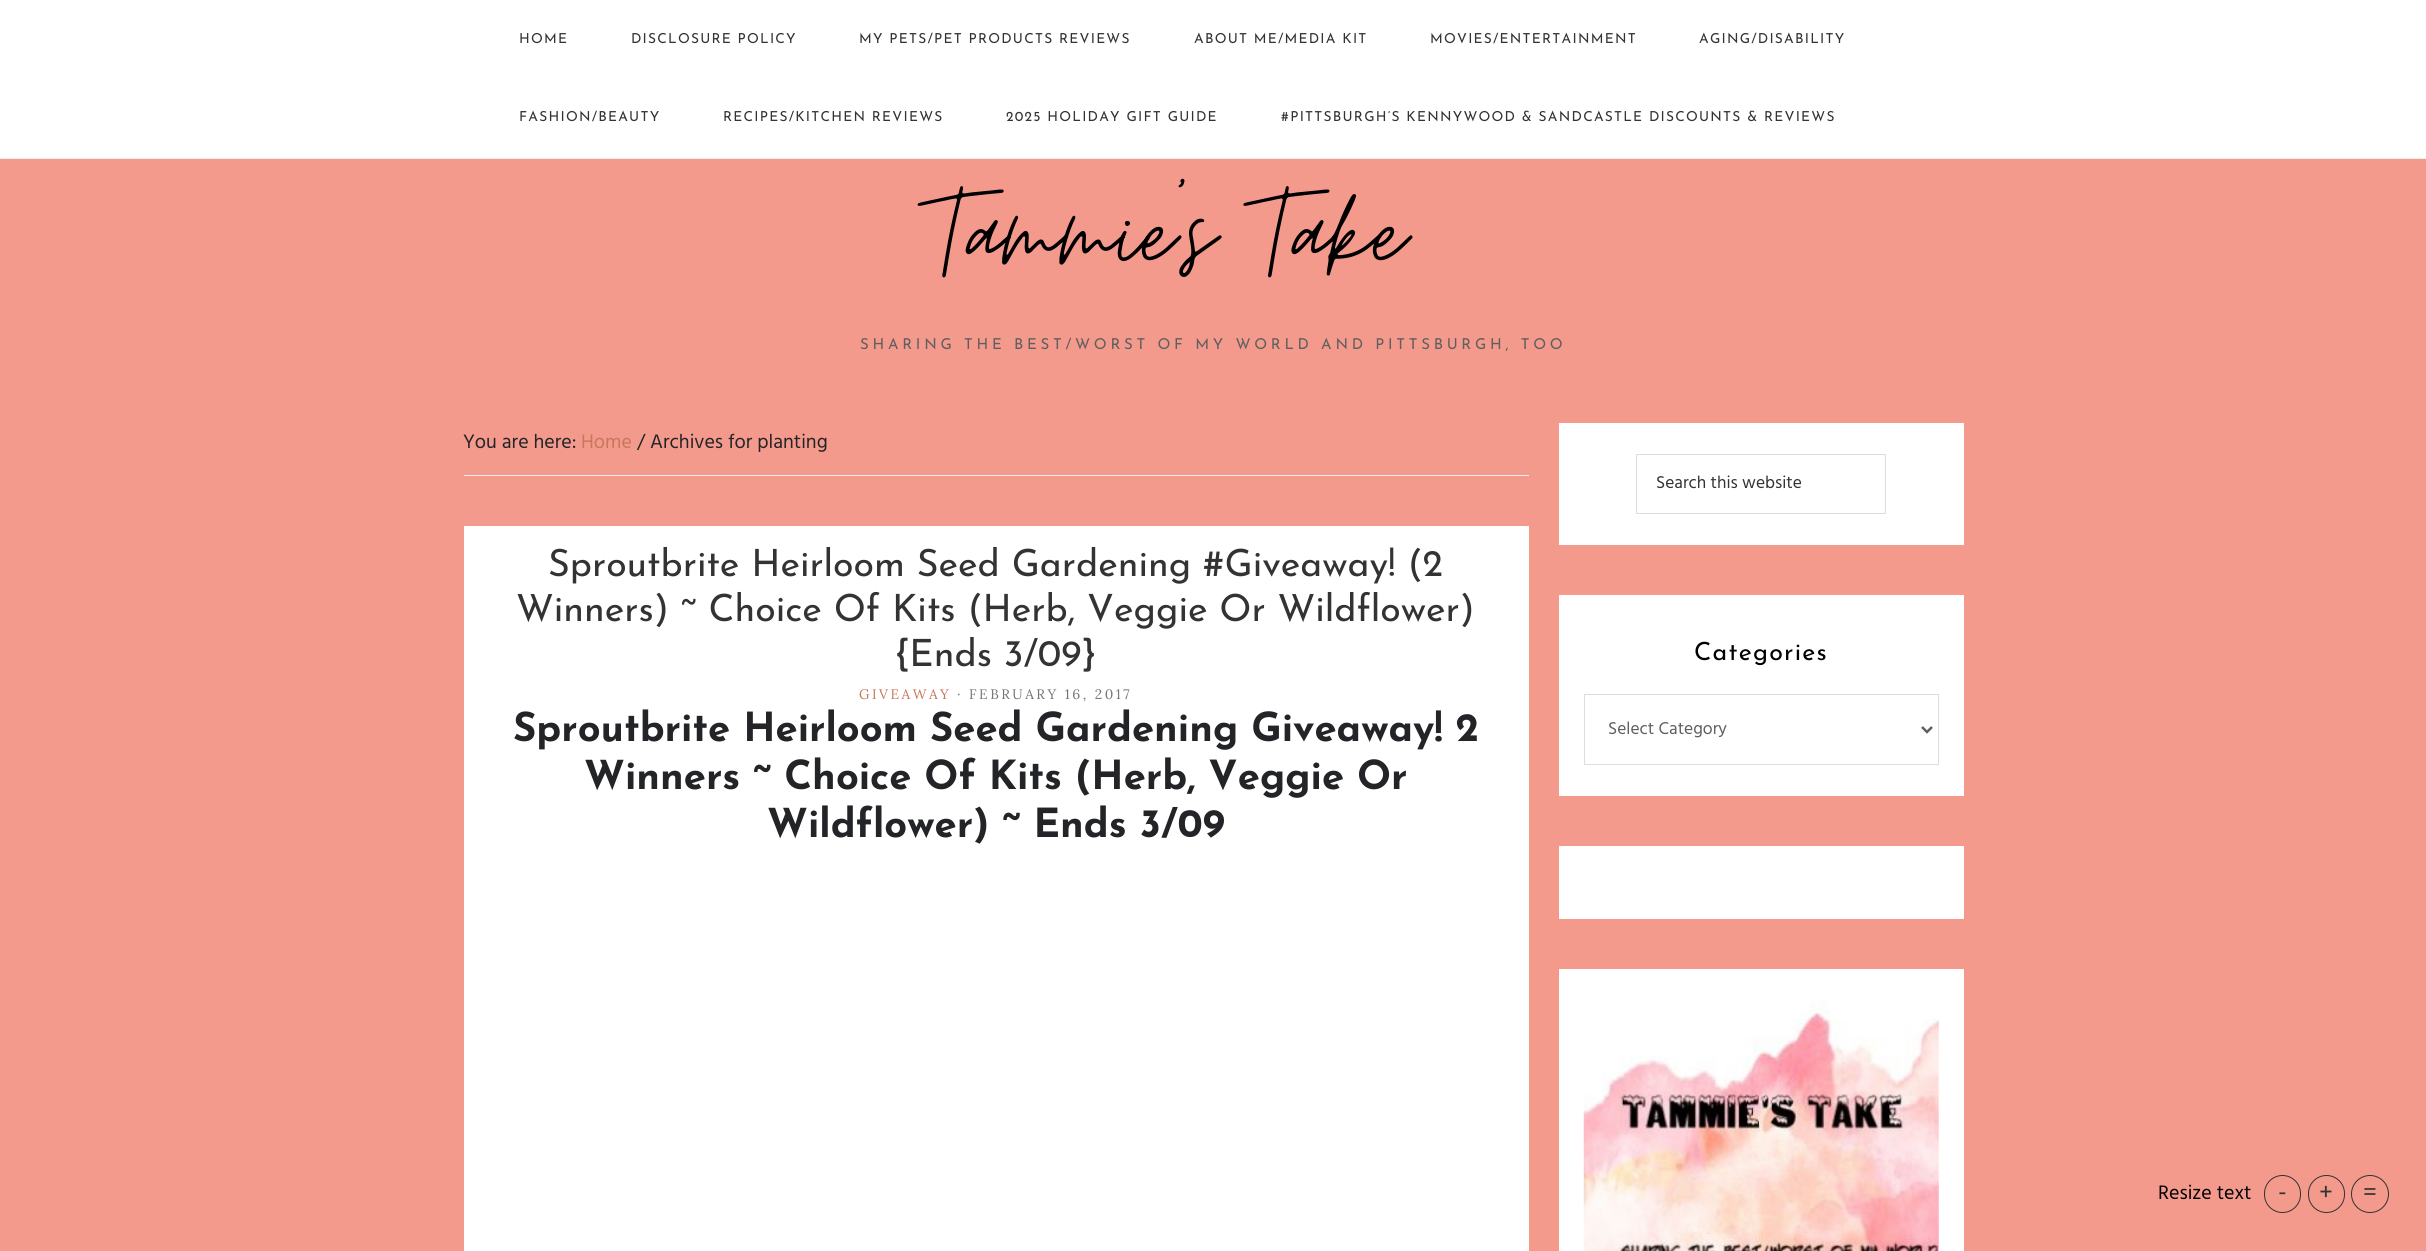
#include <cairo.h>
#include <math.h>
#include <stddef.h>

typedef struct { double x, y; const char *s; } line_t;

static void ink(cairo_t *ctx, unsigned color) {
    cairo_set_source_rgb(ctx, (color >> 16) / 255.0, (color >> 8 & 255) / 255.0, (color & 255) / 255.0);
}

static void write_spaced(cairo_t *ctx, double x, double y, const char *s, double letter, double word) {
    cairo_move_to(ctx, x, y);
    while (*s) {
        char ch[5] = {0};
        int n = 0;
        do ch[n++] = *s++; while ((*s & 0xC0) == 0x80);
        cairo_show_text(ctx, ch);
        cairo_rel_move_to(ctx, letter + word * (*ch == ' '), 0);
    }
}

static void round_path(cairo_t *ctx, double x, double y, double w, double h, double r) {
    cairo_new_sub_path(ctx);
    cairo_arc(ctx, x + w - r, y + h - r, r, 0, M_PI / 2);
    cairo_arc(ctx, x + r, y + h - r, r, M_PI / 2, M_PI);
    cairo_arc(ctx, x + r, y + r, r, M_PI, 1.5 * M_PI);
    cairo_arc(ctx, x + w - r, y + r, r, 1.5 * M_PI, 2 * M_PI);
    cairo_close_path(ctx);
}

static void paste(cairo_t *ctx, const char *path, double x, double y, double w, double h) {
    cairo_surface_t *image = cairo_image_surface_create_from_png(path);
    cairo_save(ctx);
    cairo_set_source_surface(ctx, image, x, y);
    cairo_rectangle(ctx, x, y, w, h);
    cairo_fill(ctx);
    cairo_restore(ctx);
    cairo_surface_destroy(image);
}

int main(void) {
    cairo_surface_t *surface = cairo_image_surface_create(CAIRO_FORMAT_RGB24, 2426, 1251);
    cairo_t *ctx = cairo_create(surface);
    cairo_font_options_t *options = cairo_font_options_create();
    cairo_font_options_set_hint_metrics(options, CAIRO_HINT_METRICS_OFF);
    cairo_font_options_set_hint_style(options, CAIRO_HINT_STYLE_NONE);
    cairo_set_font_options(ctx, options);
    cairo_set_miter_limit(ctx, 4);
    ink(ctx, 0xF49A8D);
    cairo_paint(ctx);
    ink(ctx, 0xFFFFFF);
    cairo_rectangle(ctx, 0, 0, 2426, 158);
    cairo_fill(ctx);
    ink(ctx, 0xEBEBEB);
    cairo_rectangle(ctx, 0, 158, 2426, 1);
    cairo_fill(ctx);
    cairo_select_font_face(ctx, "Josefin Sans", CAIRO_FONT_SLANT_NORMAL, CAIRO_FONT_WEIGHT_NORMAL);
    cairo_set_font_size(ctx, 13.75);
    ink(ctx, 0x333333);
    {
        static const line_t items[] = {
            {519, 43, "HOME"},
            {631, 43, "DISCLOSURE POLICY"},
            {859, 43, "MY PETS/PET PRODUCTS REVIEWS"},
            {1194, 43, "ABOUT ME/MEDIA KIT"},
            {1430, 43, "MOVIES/ENTERTAINMENT"},
            {1699, 43, "AGING/DISABILITY"},
            {519, 121, "FASHION/BEAUTY"},
            {723, 121, "RECIPES/KITCHEN REVIEWS"},
            {1006, 121, "2025 HOLIDAY GIFT GUIDE"},
            {1281, 121, "#PITTSBURGH’S KENNYWOOD & SANDCASTLE DISCOUNTS & REVIEWS"},
        };
        for (size_t i = 0; i < sizeof items / sizeof *items; i++) {
            write_spaced(ctx, items[i].x, items[i].y, items[i].s, 1.25, 0);
        }
    }
    cairo_select_font_face(ctx, "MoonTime", CAIRO_FONT_SLANT_NORMAL, CAIRO_FONT_WEIGHT_NORMAL);
    cairo_set_font_size(ctx, 137.5);
    ink(ctx, 0x000000);
    cairo_move_to(ctx, 930, 266);
    cairo_show_text(ctx, "Tammie's Take~");
    cairo_select_font_face(ctx, "Josefin Sans", CAIRO_FONT_SLANT_NORMAL, CAIRO_FONT_WEIGHT_NORMAL);
    cairo_set_font_size(ctx, 15);
    ink(ctx, 0x5F5F5F);
    write_spaced(ctx, 860, 349, "SHARING THE BEST/WORST OF MY WORLD AND PITTSBURGH, TOO", 3.75, 0);
    ink(ctx, 0xEEEEEE);
    cairo_rectangle(ctx, 464, 475, 1065, 1);
    cairo_fill(ctx);
    cairo_select_font_face(ctx, "Hind", CAIRO_FONT_SLANT_NORMAL, CAIRO_FONT_WEIGHT_NORMAL);
    cairo_set_font_size(ctx, 20);
    ink(ctx, 0x232427);
    cairo_move_to(ctx, 463, 448);
    cairo_show_text(ctx, "You are here:");
    ink(ctx, 0xC6785B);
    cairo_move_to(ctx, 581, 448);
    cairo_show_text(ctx, "Home");
    ink(ctx, 0x232427);
    cairo_move_to(ctx, 637, 448);
    cairo_show_text(ctx, "/ Archives for planting");
    ink(ctx, 0xFFFFFF);
    cairo_rectangle(ctx, 464, 526, 1065, 725);
    cairo_fill(ctx);
    cairo_select_font_face(ctx, "Josefin Sans", CAIRO_FONT_SLANT_NORMAL, CAIRO_FONT_WEIGHT_NORMAL);
    cairo_set_font_size(ctx, 37.5);
    ink(ctx, 0x333333);
    {
        static const line_t items[] = {
            {548, 576, "Sproutbrite Heirloom Seed Gardening #Giveaway! (2"},
            {516, 621, "Winners) ~ Choice Of Kits (Herb, Veggie Or Wildflower)"},
            {896, 666, "{Ends 3/09}"},
        };
        for (size_t i = 0; i < sizeof items / sizeof *items; i++) {
            cairo_move_to(ctx, items[i].x, items[i].y);
            cairo_show_text(ctx, items[i].s);
        }
    }
    cairo_select_font_face(ctx, "Lora", CAIRO_FONT_SLANT_NORMAL, CAIRO_FONT_WEIGHT_NORMAL);
    cairo_set_font_size(ctx, 13.75);
    ink(ctx, 0xC6785B);
    write_spaced(ctx, 859, 699, "GIVEAWAY", 2.5, 0);
    ink(ctx, 0x757575);
    write_spaced(ctx, 957, 699, "· FEBRUARY 16, 2017", 2.5, 0);
    cairo_select_font_face(ctx, "Josefin Sans", CAIRO_FONT_SLANT_NORMAL, CAIRO_FONT_WEIGHT_BOLD);
    cairo_set_font_size(ctx, 40);
    ink(ctx, 0x232427);
    {
        static const line_t items[] = {
            {513, 741, "Sproutbrite Heirloom Seed Gardening Giveaway! 2"},
            {584, 789, "Winners ~ Choice Of Kits (Herb, Veggie Or"},
            {767, 837, "Wildflower) ~ Ends 3/09"},
        };
        for (size_t i = 0; i < sizeof items / sizeof *items; i++) {
            cairo_move_to(ctx, items[i].x, items[i].y);
            cairo_show_text(ctx, items[i].s);
        }
    }
    ink(ctx, 0xFFFFFF);
    cairo_rectangle(ctx, 1559, 423, 405, 122);
    cairo_fill(ctx);
    cairo_rectangle(ctx, 1636.5, 454.5, 249, 59);
    ink(ctx, 0xDDDDDD);
    cairo_set_line_width(ctx, 1);
    cairo_stroke(ctx);
    cairo_select_font_face(ctx, "Hind", CAIRO_FONT_SLANT_NORMAL, CAIRO_FONT_WEIGHT_NORMAL);
    cairo_set_font_size(ctx, 17.5);
    ink(ctx, 0x333333);
    cairo_move_to(ctx, 1656, 488);
    cairo_show_text(ctx, "Search this website");
    ink(ctx, 0xFFFFFF);
    cairo_rectangle(ctx, 1559, 595, 405, 201);
    cairo_fill(ctx);
    cairo_select_font_face(ctx, "Josefin Sans", CAIRO_FONT_SLANT_NORMAL, CAIRO_FONT_WEIGHT_NORMAL);
    cairo_set_font_size(ctx, 25);
    ink(ctx, 0x000000);
    write_spaced(ctx, 1694, 660, "Categories", 1.25, 0);
    cairo_rectangle(ctx, 1584.5, 694.5, 354, 70);
    ink(ctx, 0xDDDDDD);
    cairo_stroke(ctx);
    cairo_new_path(ctx);
    cairo_move_to(ctx, 1922, 727);
    cairo_line_to(ctx, 1927, 732);
    cairo_line_to(ctx, 1932, 727);
    ink(ctx, 0x5F5F5F);
    cairo_set_line_width(ctx, 2.5);
    cairo_stroke(ctx);
    cairo_select_font_face(ctx, "Hind", CAIRO_FONT_SLANT_NORMAL, CAIRO_FONT_WEIGHT_NORMAL);
    cairo_set_font_size(ctx, 17.5);
    cairo_move_to(ctx, 1608, 734);
    cairo_show_text(ctx, "Select Category");
    ink(ctx, 0xFFFFFF);
    cairo_rectangle(ctx, 1559, 846, 405, 73);
    cairo_fill(ctx);
    cairo_rectangle(ctx, 1559, 969, 405, 282);
    cairo_fill(ctx);
    paste(ctx, "media/1.png", 1583, 1000, 356, 251);
    cairo_set_font_size(ctx, 20);
    ink(ctx, 0x000000);
    cairo_move_to(ctx, 2158, 1199);
    cairo_show_text(ctx, "Resize text");
    round_path(ctx, 2264.5, 1175.5, 36, 37, 18);
    ink(ctx, 0x333333);
    cairo_set_line_width(ctx, 1);
    cairo_stroke(ctx);
    cairo_set_font_size(ctx, 25);
    cairo_move_to(ctx, 2278, 1200);
    cairo_show_text(ctx, "-");
    round_path(ctx, 2308.5, 1175.5, 36, 37, 18);
    cairo_stroke(ctx);
    cairo_move_to(ctx, 2319, 1200);
    cairo_show_text(ctx, "+");
    cairo_new_path(ctx);
    cairo_arc(ctx, 2370, 1194, 18.5, 0, 2 * M_PI);
    cairo_stroke(ctx);
    cairo_move_to(ctx, 2363, 1200);
    cairo_show_text(ctx, "=");
    cairo_surface_write_to_png(surface, "image.png");
    cairo_font_options_destroy(options);
    cairo_destroy(ctx);
    cairo_surface_destroy(surface);
    return 0;
}
